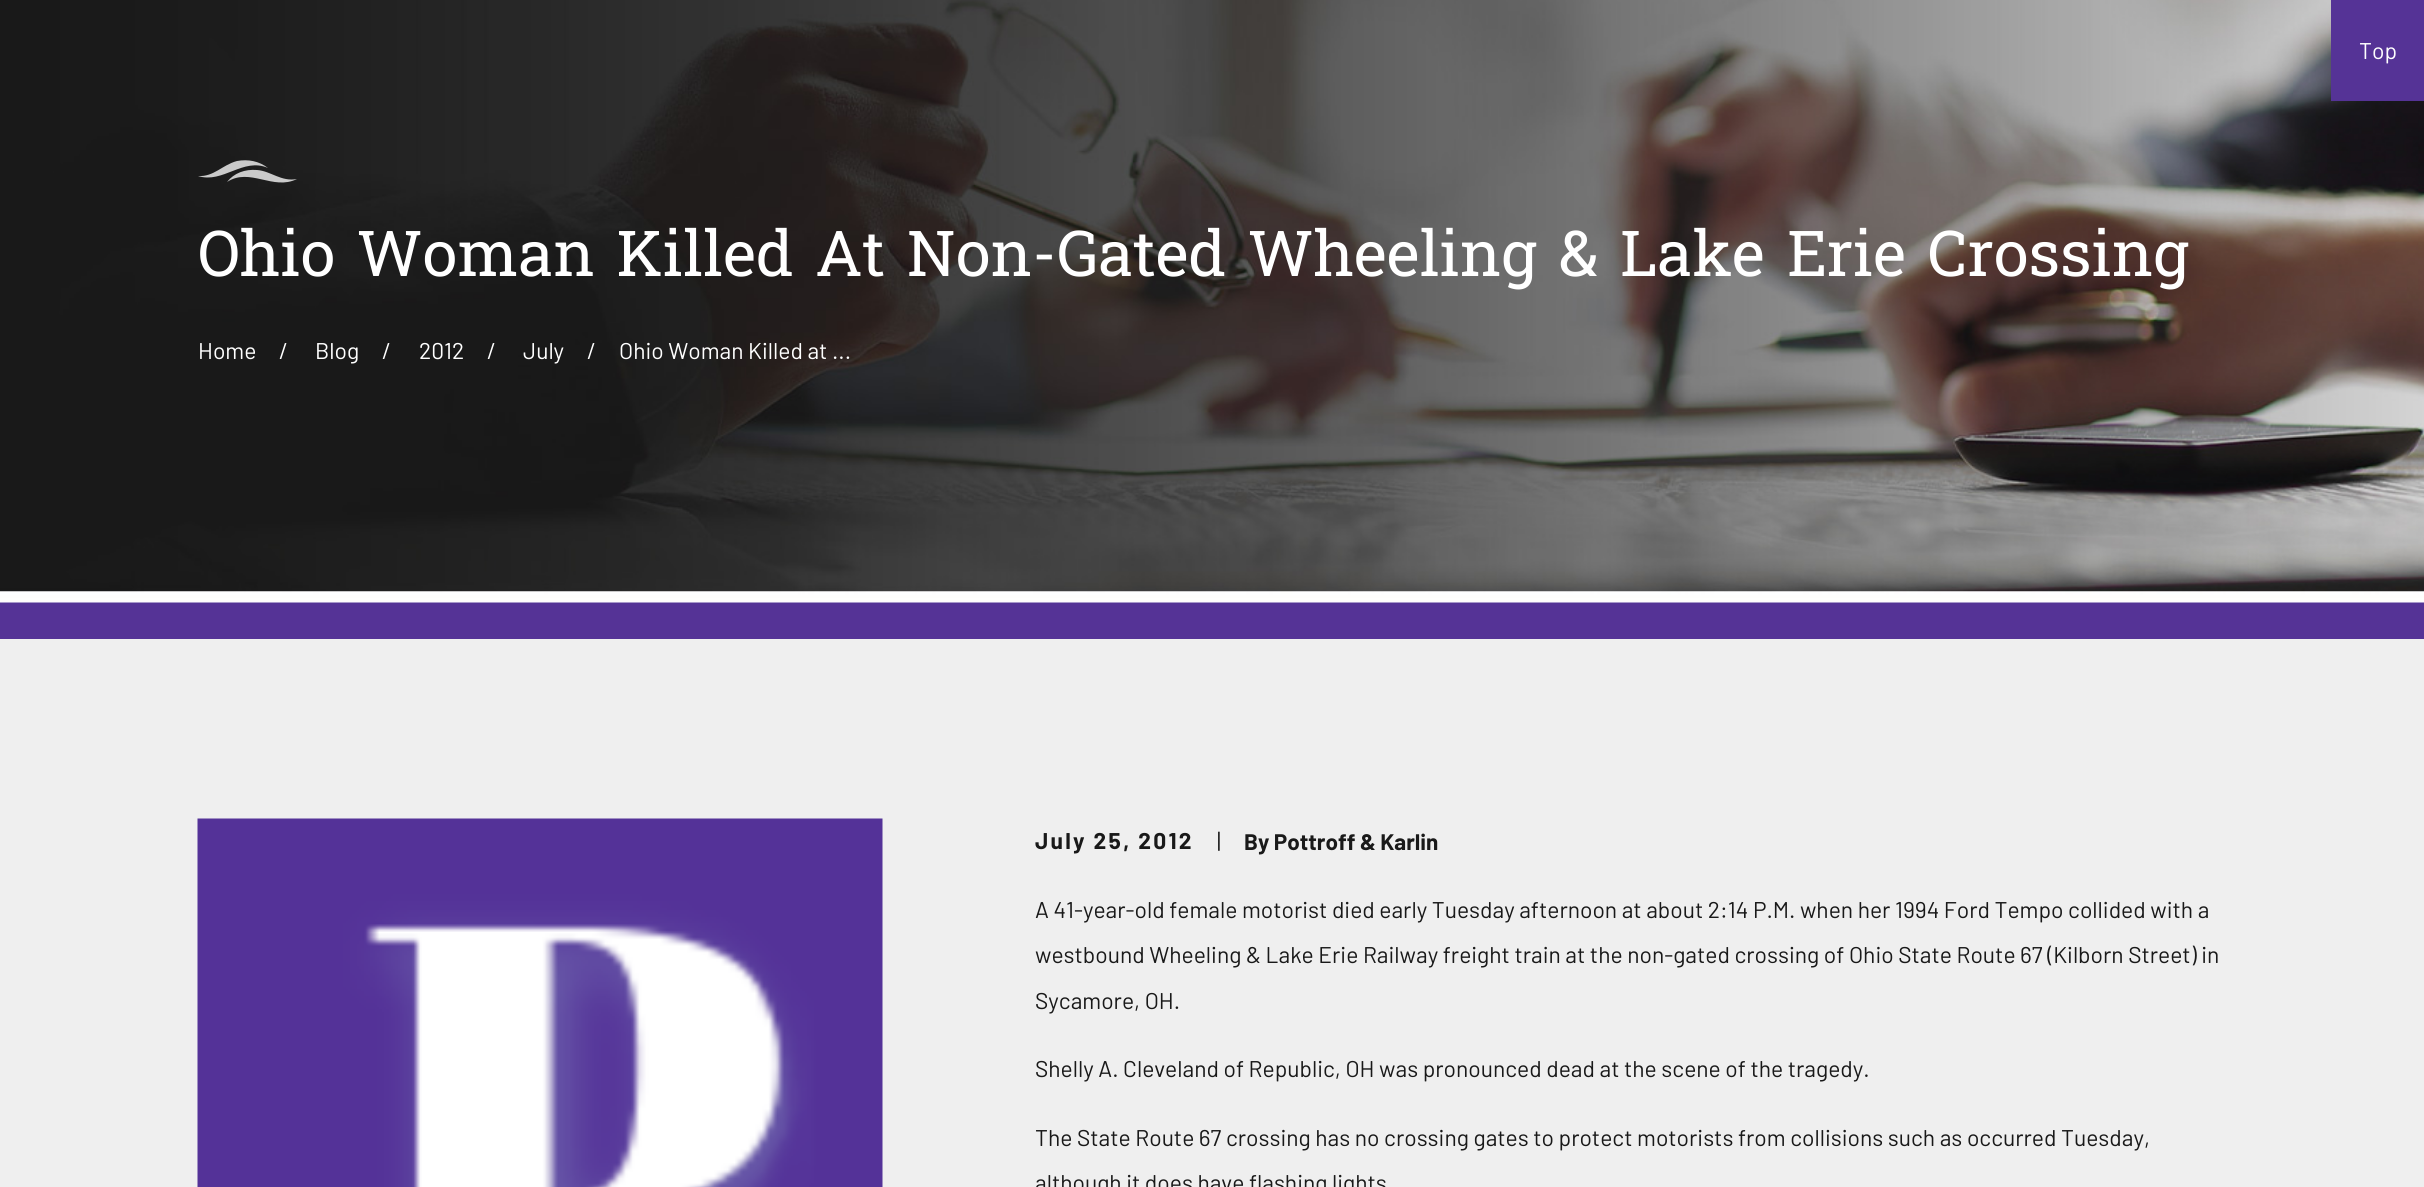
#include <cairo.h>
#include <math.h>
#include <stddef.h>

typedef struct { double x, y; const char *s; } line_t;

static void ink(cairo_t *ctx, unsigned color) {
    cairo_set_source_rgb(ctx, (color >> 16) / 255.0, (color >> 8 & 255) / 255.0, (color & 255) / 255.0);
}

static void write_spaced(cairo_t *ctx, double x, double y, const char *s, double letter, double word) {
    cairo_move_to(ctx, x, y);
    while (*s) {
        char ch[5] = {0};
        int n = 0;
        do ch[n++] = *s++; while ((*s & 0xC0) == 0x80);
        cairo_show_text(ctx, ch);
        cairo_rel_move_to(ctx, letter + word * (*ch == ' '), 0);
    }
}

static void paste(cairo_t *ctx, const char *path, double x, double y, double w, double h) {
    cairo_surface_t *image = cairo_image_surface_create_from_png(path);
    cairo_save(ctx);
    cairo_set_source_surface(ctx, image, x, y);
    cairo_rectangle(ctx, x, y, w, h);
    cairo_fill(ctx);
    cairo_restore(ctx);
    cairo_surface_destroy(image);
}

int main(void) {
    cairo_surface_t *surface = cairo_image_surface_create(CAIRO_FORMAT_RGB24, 2424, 1187);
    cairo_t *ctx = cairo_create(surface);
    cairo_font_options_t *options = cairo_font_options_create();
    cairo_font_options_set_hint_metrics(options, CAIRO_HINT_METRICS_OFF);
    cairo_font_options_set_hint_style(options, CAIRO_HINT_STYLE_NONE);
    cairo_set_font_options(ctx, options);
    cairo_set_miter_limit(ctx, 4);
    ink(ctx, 0xEFEFEF);
    cairo_paint(ctx);
    paste(ctx, "media/1.png", 0, 0, 2424, 603);
    ink(ctx, 0x553396);
    cairo_rectangle(ctx, 2331, 0, 93, 101);
    cairo_fill(ctx);
    cairo_select_font_face(ctx, "Barlow", CAIRO_FONT_SLANT_NORMAL, CAIRO_FONT_WEIGHT_NORMAL);
    cairo_set_font_size(ctx, 22.8);
    ink(ctx, 0xFFFFFF);
    cairo_move_to(ctx, 2359, 59);
    cairo_show_text(ctx, "Top");
    ink(ctx, 0x553396);
    cairo_rectangle(ctx, 0, 603, 2424, 36);
    cairo_fill(ctx);
    ink(ctx, 0xCACACA);
    cairo_new_path(ctx);
    cairo_move_to(ctx, 268, 168);
    cairo_curve_to(ctx, 259, 161, 248, 159, 237, 161);
    cairo_curve_to(ctx, 222, 165, 214, 177, 198, 176);
    cairo_curve_to(ctx, 223, 184, 243, 157, 268, 168);
    cairo_close_path(ctx);
    cairo_move_to(ctx, 257, 170);
    cairo_curve_to(ctx, 245, 169, 234, 173, 227, 182);
    cairo_curve_to(ctx, 250, 167, 273, 191, 297, 179);
    cairo_curve_to(ctx, 281, 182, 271, 171, 257, 170);
    cairo_close_path(ctx);
    cairo_fill(ctx);
    cairo_select_font_face(ctx, "Hanuman", CAIRO_FONT_SLANT_NORMAL, CAIRO_FONT_WEIGHT_NORMAL);
    cairo_set_font_size(ctx, 63.25);
    ink(ctx, 0xFFFFFF);
    cairo_move_to(ctx, 198, 276);
    cairo_show_text(ctx, "Ohio Woman Killed At Non-Gated Wheeling & Lake Erie Crossing");
    cairo_select_font_face(ctx, "Barlow", CAIRO_FONT_SLANT_NORMAL, CAIRO_FONT_WEIGHT_NORMAL);
    cairo_set_font_size(ctx, 22.8);
    {
        static const line_t items[] = {
            {198, 359, "Home"},
            {279, 359, "/"},
            {315, 359, "Blog"},
            {382, 359, "/"},
            {419, 359, "2012"},
            {487, 359, "/"},
            {523, 359, "July"},
            {587, 359, "/"},
            {619, 359, "Ohio Woman Killed at ..."},
        };
        for (size_t i = 0; i < sizeof items / sizeof *items; i++) {
            cairo_move_to(ctx, items[i].x, items[i].y);
            cairo_show_text(ctx, items[i].s);
        }
    }
    paste(ctx, "media/2.png", 197, 818, 686, 369);
    cairo_select_font_face(ctx, "Barlow", CAIRO_FONT_SLANT_NORMAL, CAIRO_FONT_WEIGHT_BOLD);
    ink(ctx, 0x191919);
    write_spaced(ctx, 1035, 849, "July 25, 2012", 2.25, 0);
    cairo_select_font_face(ctx, "Barlow", CAIRO_FONT_SLANT_NORMAL, CAIRO_FONT_WEIGHT_NORMAL);
    cairo_move_to(ctx, 1217, 849);
    cairo_show_text(ctx, "|");
    cairo_select_font_face(ctx, "Barlow", CAIRO_FONT_SLANT_NORMAL, CAIRO_FONT_WEIGHT_BOLD);
    cairo_set_font_size(ctx, 22.5);
    cairo_move_to(ctx, 1244, 850);
    cairo_show_text(ctx, "By Pottroff & Karlin");
    cairo_select_font_face(ctx, "Barlow", CAIRO_FONT_SLANT_NORMAL, CAIRO_FONT_WEIGHT_NORMAL);
    cairo_set_font_size(ctx, 22.8);
    {
        static const line_t items[] = {
            {1035, 918, "A 41-year-old female motorist died early Tuesday afternoon at about 2:14 P.M. when her 1994 Ford Tempo collided with a"},
            {1035, 963, "westbound Wheeling & Lake Erie Railway freight train at the non-gated crossing of Ohio State Route 67 (Kilborn Street) in"},
            {1035, 1009, "Sycamore, OH."},
            {1035, 1077, "Shelly A. Cleveland of Republic, OH was pronounced dead at the scene of the tragedy."},
            {1035, 1146, "The State Route 67 crossing has no crossing gates to protect motorists from collisions such as occurred Tuesday,"},
            {1035, 1191, "although it does have flashing lights"},
        };
        for (size_t i = 0; i < sizeof items / sizeof *items; i++) {
            cairo_move_to(ctx, items[i].x, items[i].y);
            cairo_show_text(ctx, items[i].s);
        }
    }
    cairo_surface_write_to_png(surface, "image.png");
    cairo_font_options_destroy(options);
    cairo_destroy(ctx);
    cairo_surface_destroy(surface);
    return 0;
}
